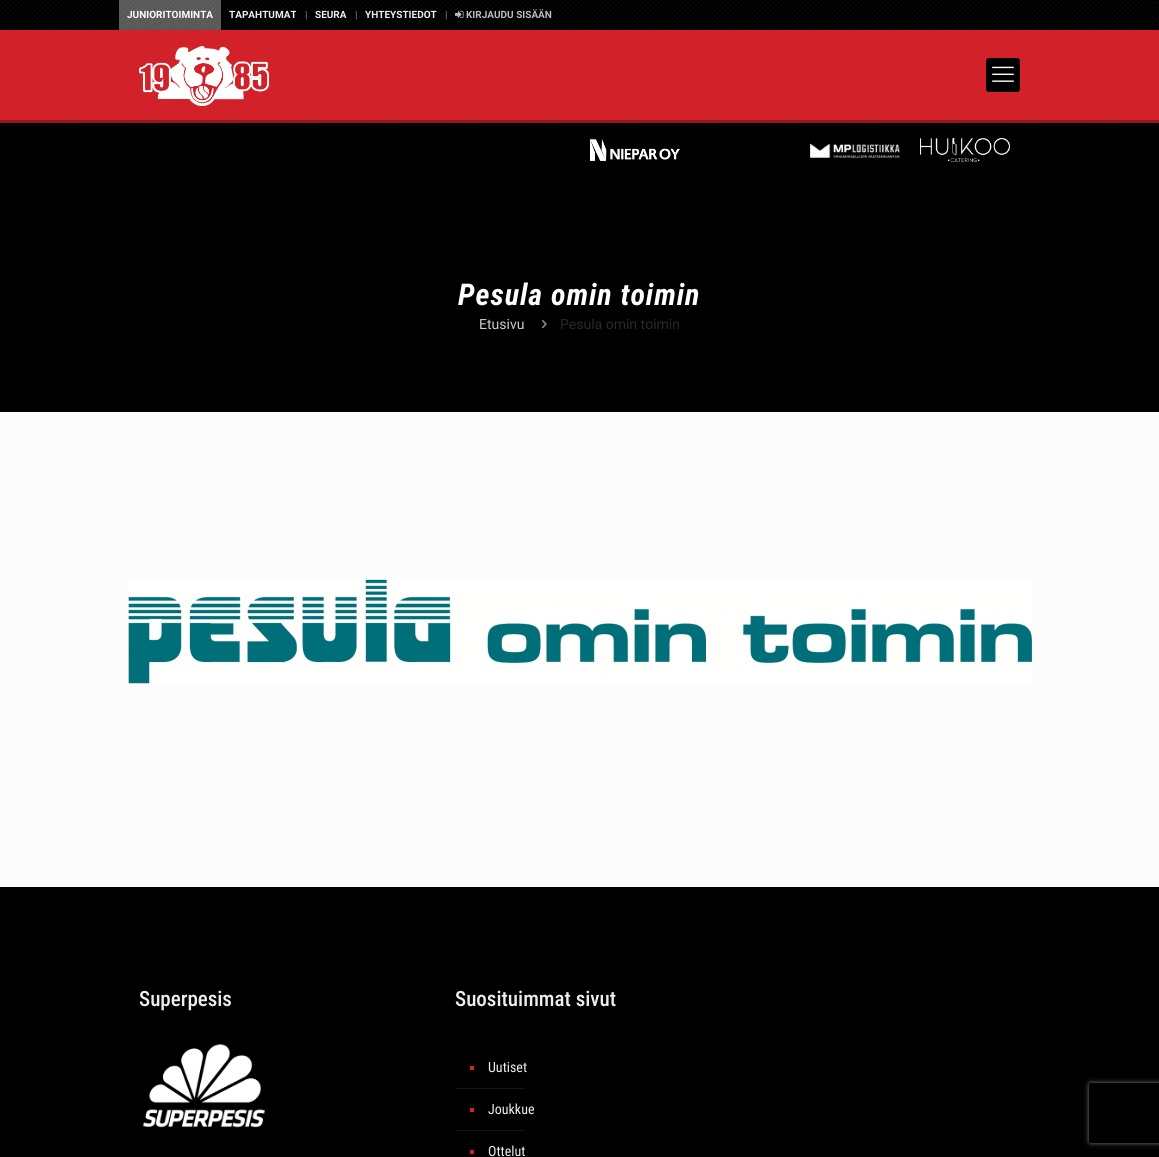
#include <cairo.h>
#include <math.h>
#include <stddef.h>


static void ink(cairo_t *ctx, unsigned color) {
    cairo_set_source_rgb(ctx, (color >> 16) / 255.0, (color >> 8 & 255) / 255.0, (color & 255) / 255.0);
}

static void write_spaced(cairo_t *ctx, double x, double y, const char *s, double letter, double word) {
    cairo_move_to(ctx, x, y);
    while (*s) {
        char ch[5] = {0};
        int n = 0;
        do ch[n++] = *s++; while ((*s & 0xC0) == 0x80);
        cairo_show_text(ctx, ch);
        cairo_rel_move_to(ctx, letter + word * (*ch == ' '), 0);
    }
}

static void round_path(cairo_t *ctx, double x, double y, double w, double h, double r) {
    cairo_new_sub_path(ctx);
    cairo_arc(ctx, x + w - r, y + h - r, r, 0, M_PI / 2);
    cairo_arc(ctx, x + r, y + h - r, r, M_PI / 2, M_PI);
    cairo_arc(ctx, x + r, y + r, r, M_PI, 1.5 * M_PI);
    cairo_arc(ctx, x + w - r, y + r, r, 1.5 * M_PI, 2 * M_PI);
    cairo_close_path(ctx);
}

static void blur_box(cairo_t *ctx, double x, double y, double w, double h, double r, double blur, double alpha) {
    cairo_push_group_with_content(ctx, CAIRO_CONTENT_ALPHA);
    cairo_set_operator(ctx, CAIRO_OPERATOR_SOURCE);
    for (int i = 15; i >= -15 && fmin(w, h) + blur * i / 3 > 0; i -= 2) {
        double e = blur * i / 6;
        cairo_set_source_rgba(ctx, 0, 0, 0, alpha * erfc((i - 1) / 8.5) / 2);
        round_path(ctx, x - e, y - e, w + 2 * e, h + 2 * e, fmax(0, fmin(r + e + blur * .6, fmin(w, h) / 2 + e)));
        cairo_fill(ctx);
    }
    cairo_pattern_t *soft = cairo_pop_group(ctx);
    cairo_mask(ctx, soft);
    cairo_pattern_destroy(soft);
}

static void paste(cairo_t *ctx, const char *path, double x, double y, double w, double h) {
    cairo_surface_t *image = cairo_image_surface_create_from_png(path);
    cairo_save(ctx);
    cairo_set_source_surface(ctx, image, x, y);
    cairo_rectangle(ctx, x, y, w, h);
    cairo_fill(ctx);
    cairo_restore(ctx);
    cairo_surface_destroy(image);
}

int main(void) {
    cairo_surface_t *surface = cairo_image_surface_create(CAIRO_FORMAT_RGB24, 1159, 1157);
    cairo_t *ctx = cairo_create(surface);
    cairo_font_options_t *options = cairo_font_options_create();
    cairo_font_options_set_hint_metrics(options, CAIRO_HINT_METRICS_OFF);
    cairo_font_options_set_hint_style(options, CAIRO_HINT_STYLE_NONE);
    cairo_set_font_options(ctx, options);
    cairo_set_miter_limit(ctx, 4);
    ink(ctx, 0xFCFCFC);
    cairo_paint(ctx);
    ink(ctx, 0x000000);
    cairo_rectangle(ctx, 0, 0, 1159, 30);
    cairo_fill(ctx);
    paste(ctx, "media/1.png", 0, 0, 1159, 30);
    cairo_set_source_rgba(ctx, 1, 1, 1, 0.35);
    cairo_rectangle(ctx, 119, 0, 102, 30);
    cairo_fill(ctx);
    cairo_select_font_face(ctx, "Roboto", CAIRO_FONT_SLANT_NORMAL, CAIRO_FONT_WEIGHT_BOLD);
    cairo_set_font_size(ctx, 10);
    ink(ctx, 0xFFFFFF);
    cairo_move_to(ctx, 127, 18);
    cairo_show_text(ctx, "JUNIORITOIMINTA");
    ink(ctx, 0xEEEEEE);
    cairo_move_to(ctx, 229, 18);
    cairo_show_text(ctx, "TAPAHTUMAT");
    cairo_select_font_face(ctx, "Roboto", CAIRO_FONT_SLANT_NORMAL, CAIRO_FONT_WEIGHT_NORMAL);
    ink(ctx, 0x818181);
    cairo_move_to(ctx, 305, 18);
    cairo_show_text(ctx, "|");
    cairo_select_font_face(ctx, "Roboto", CAIRO_FONT_SLANT_NORMAL, CAIRO_FONT_WEIGHT_BOLD);
    ink(ctx, 0xEEEEEE);
    cairo_move_to(ctx, 315, 18);
    cairo_show_text(ctx, "SEURA");
    cairo_select_font_face(ctx, "Roboto", CAIRO_FONT_SLANT_NORMAL, CAIRO_FONT_WEIGHT_NORMAL);
    ink(ctx, 0x818181);
    cairo_move_to(ctx, 355, 18);
    cairo_show_text(ctx, "|");
    cairo_select_font_face(ctx, "Roboto", CAIRO_FONT_SLANT_NORMAL, CAIRO_FONT_WEIGHT_BOLD);
    ink(ctx, 0xEEEEEE);
    cairo_move_to(ctx, 365, 18);
    cairo_show_text(ctx, "YHTEYSTIEDOT");
    cairo_select_font_face(ctx, "Roboto", CAIRO_FONT_SLANT_NORMAL, CAIRO_FONT_WEIGHT_NORMAL);
    ink(ctx, 0x818181);
    cairo_move_to(ctx, 445, 18);
    cairo_show_text(ctx, "|");
    paste(ctx, "media/2.png", 455, 10, 9, 8);
    cairo_select_font_face(ctx, "Roboto", CAIRO_FONT_SLANT_NORMAL, CAIRO_FONT_WEIGHT_BOLD);
    ink(ctx, 0xBBBBBB);
    cairo_move_to(ctx, 466, 18);
    cairo_show_text(ctx, "KIRJAUDU SISÄÄN");
    ink(ctx, 0xD5222A);
    cairo_rectangle(ctx, 0, 30, 1159, 90);
    cairo_fill(ctx);
    paste(ctx, "media/3.png", 0, 30, 1159, 90);
    ink(ctx, 0x93171D);
    cairo_rectangle(ctx, 0, 120, 1159, 3);
    cairo_fill(ctx);
    paste(ctx, "media/4.png", 139, 46, 130, 60);
    ink(ctx, 0x000000);
    round_path(ctx, 986, 58, 34, 34, 3);
    cairo_fill(ctx);
    paste(ctx, "media/5.png", 992, 66, 22, 16);
    cairo_rectangle(ctx, 0, 123, 1159, 289);
    cairo_fill(ctx);
    paste(ctx, "media/6.png", 590, 139, 90, 22);
    paste(ctx, "media/7.png", 810, 143, 90, 15);
    paste(ctx, "media/8.png", 920, 138, 90, 24);
    cairo_select_font_face(ctx, "Roboto Condensed", CAIRO_FONT_SLANT_ITALIC, CAIRO_FONT_WEIGHT_BOLD);
    cairo_set_font_size(ctx, 30);
    ink(ctx, 0xFFFFFF);
    write_spaced(ctx, 458, 305, "Pesula omin toimin", 1, 0);
    cairo_select_font_face(ctx, "Roboto", CAIRO_FONT_SLANT_NORMAL, CAIRO_FONT_WEIGHT_NORMAL);
    cairo_set_font_size(ctx, 14);
    ink(ctx, 0xCCCCCC);
    cairo_move_to(ctx, 479, 329);
    cairo_show_text(ctx, "Etusivu");
    paste(ctx, "media/9.png", 542, 320, 5, 9);
    ink(ctx, 0x292929);
    cairo_move_to(ctx, 560, 329);
    cairo_show_text(ctx, "Pesula omin toimin");
    paste(ctx, "media/10.png", 128, 579, 904, 105);
    ink(ctx, 0x000000);
    cairo_rectangle(ctx, 0, 887, 1159, 270);
    cairo_fill(ctx);
    cairo_select_font_face(ctx, "Roboto Condensed Medium", CAIRO_FONT_SLANT_NORMAL, CAIRO_FONT_WEIGHT_NORMAL);
    cairo_set_font_size(ctx, 21);
    ink(ctx, 0xEEEEEE);
    cairo_move_to(ctx, 139, 1006);
    cairo_show_text(ctx, "Superpesis");
    paste(ctx, "media/11.png", 142, 1043, 123, 85);
    cairo_move_to(ctx, 455, 1006);
    cairo_show_text(ctx, "Suosituimmat sivut");
    ink(ctx, 0xD5222A);
    cairo_rectangle(ctx, 470, 1066, 4, 4);
    cairo_fill(ctx);
    cairo_select_font_face(ctx, "Roboto Condensed", CAIRO_FONT_SLANT_NORMAL, CAIRO_FONT_WEIGHT_NORMAL);
    cairo_set_font_size(ctx, 14);
    ink(ctx, 0xEEEEEE);
    cairo_move_to(ctx, 488, 1072);
    cairo_show_text(ctx, "Uutiset");
    ink(ctx, 0x141414);
    cairo_rectangle(ctx, 455, 1088, 70, 1);
    cairo_fill(ctx);
    ink(ctx, 0xD5222A);
    cairo_rectangle(ctx, 470, 1108, 4, 4);
    cairo_fill(ctx);
    ink(ctx, 0xEEEEEE);
    cairo_move_to(ctx, 488, 1114);
    cairo_show_text(ctx, "Joukkue");
    ink(ctx, 0x141414);
    cairo_rectangle(ctx, 455, 1130, 70, 1);
    cairo_fill(ctx);
    ink(ctx, 0xD5222A);
    cairo_rectangle(ctx, 470, 1150, 4, 4);
    cairo_fill(ctx);
    ink(ctx, 0xEEEEEE);
    cairo_move_to(ctx, 488, 1156);
    cairo_show_text(ctx, "Ottelut");
    cairo_save(ctx);
    cairo_set_fill_rule(ctx, CAIRO_FILL_RULE_EVEN_ODD);
    cairo_new_path(ctx);
    cairo_move_to(ctx, 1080, 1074);
    cairo_line_to(ctx, 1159, 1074);
    cairo_line_to(ctx, 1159, 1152);
    cairo_line_to(ctx, 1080, 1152);
    cairo_close_path(ctx);
    cairo_move_to(ctx, 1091, 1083);
    cairo_line_to(ctx, 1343, 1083);
    cairo_curve_to(ctx, 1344, 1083, 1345, 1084, 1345, 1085);
    cairo_line_to(ctx, 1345, 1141);
    cairo_curve_to(ctx, 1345, 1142, 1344, 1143, 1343, 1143);
    cairo_line_to(ctx, 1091, 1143);
    cairo_curve_to(ctx, 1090, 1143, 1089, 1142, 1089, 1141);
    cairo_line_to(ctx, 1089, 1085);
    cairo_curve_to(ctx, 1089, 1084, 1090, 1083, 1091, 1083);
    cairo_close_path(ctx);
    cairo_clip(ctx);
    ink(ctx, 0x808080);
    blur_box(ctx, 1089, 1083, 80, 60, 2, 2.5, 1);
    cairo_restore(ctx);
    cairo_surface_write_to_png(surface, "image.png");
    cairo_font_options_destroy(options);
    cairo_destroy(ctx);
    cairo_surface_destroy(surface);
    return 0;
}
